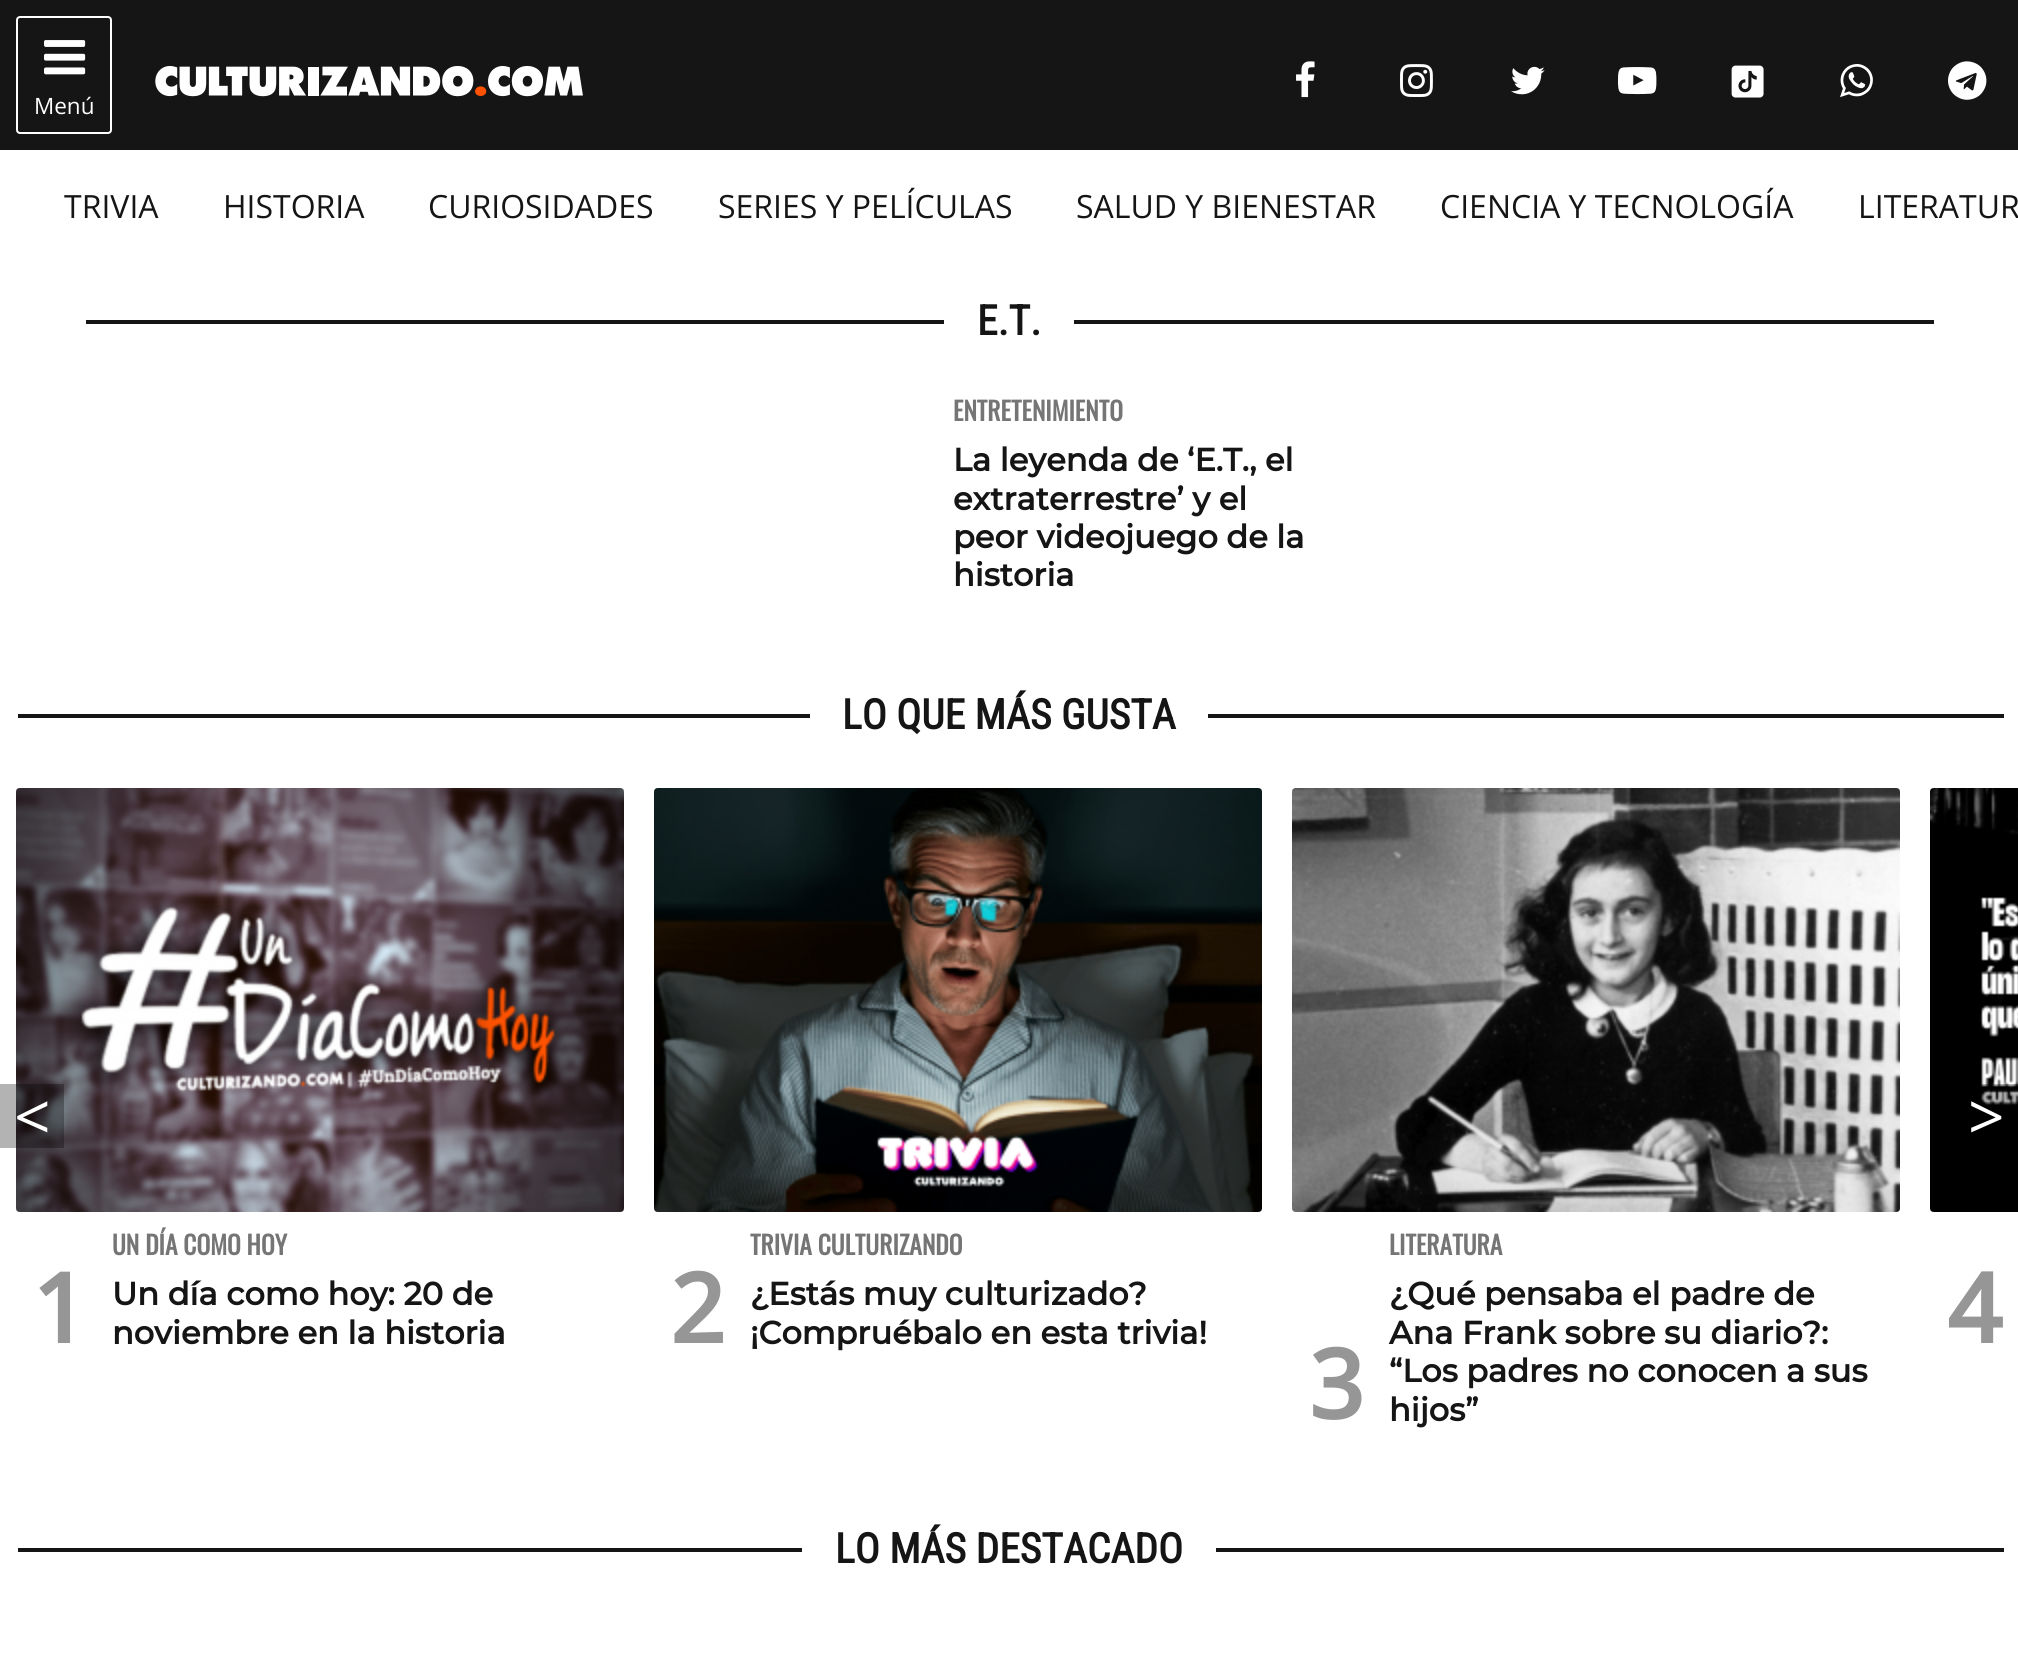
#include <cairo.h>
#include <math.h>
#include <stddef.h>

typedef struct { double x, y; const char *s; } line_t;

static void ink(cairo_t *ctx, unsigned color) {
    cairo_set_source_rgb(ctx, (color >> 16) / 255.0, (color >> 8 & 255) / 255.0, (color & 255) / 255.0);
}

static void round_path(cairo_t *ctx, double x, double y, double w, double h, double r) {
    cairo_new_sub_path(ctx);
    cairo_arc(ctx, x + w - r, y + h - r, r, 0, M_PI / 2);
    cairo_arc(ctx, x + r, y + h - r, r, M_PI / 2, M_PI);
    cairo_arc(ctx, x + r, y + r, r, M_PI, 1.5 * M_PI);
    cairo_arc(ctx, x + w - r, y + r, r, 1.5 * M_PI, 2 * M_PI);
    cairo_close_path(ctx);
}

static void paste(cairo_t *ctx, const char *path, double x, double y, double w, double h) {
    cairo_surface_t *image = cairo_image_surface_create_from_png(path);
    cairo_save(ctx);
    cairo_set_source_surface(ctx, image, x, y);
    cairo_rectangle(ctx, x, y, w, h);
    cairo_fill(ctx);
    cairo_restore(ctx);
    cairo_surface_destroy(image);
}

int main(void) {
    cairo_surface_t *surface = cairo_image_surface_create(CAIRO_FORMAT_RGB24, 2018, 1678);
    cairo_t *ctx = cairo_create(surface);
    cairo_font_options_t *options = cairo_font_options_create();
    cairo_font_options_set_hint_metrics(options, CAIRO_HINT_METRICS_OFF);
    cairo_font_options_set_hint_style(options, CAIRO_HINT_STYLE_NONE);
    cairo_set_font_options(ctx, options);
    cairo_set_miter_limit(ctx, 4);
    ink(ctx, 0xFFFFFF);
    cairo_paint(ctx);
    ink(ctx, 0x151515);
    cairo_rectangle(ctx, 0, 0, 2018, 150);
    cairo_fill(ctx);
    paste(ctx, "media/1.png", 155, 66, 428, 31);
    paste(ctx, "media/2.png", 1296, 61, 19, 37);
    paste(ctx, "media/3.png", 1400, 64, 33, 33);
    paste(ctx, "media/4.png", 1511, 66, 34, 29);
    paste(ctx, "media/5.png", 1618, 67, 39, 28);
    paste(ctx, "media/6.png", 1731, 65, 33, 33);
    paste(ctx, "media/7.png", 1840, 64, 33, 34);
    paste(ctx, "media/8.png", 1948, 61, 39, 39);
    round_path(ctx, 17, 17, 94, 116, 3);
    ink(ctx, 0xFFFFFF);
    cairo_stroke(ctx);
    paste(ctx, "media/9.png", 44, 40, 42, 35);
    cairo_select_font_face(ctx, "Open Sans", CAIRO_FONT_SLANT_NORMAL, CAIRO_FONT_WEIGHT_NORMAL);
    cairo_set_font_size(ctx, 22.5);
    cairo_move_to(ctx, 34, 114);
    cairo_show_text(ctx, "Menú");
    cairo_set_font_size(ctx, 32);
    ink(ctx, 0x151515);
    {
        static const line_t items[] = {
            {64, 218, "TRIVIA"},
            {223, 218, "HISTORIA"},
            {428, 218, "CURIOSIDADES"},
            {718, 218, "SERIES Y PELÍCULAS"},
            {1076, 218, "SALUD Y BIENESTAR"},
            {1440, 218, "CIENCIA Y TECNOLOGÍA"},
            {1858, 218, "LITERATUR"},
        };
        for (size_t i = 0; i < sizeof items / sizeof *items; i++) {
            cairo_move_to(ctx, items[i].x, items[i].y);
            cairo_show_text(ctx, items[i].s);
        }
    }
    cairo_rectangle(ctx, 86, 320, 1848, 4);
    cairo_fill(ctx);
    ink(ctx, 0xFFFFFF);
    cairo_rectangle(ctx, 944, 320, 130, 4);
    cairo_fill(ctx);
    cairo_select_font_face(ctx, "Roboto Condensed", CAIRO_FONT_SLANT_NORMAL, CAIRO_FONT_WEIGHT_BOLD);
    cairo_set_font_size(ctx, 41.5);
    ink(ctx, 0x151515);
    cairo_move_to(ctx, 977, 335);
    cairo_show_text(ctx, "E.T.");
    cairo_select_font_face(ctx, "Oswald", CAIRO_FONT_SLANT_NORMAL, CAIRO_FONT_WEIGHT_BOLD);
    cairo_set_font_size(ctx, 25.5);
    ink(ctx, 0x757575);
    cairo_move_to(ctx, 953, 421);
    cairo_show_text(ctx, "ENTRETENIMIENTO");
    cairo_select_font_face(ctx, "Montserrat", CAIRO_FONT_SLANT_NORMAL, CAIRO_FONT_WEIGHT_BOLD);
    cairo_set_font_size(ctx, 32);
    ink(ctx, 0x151515);
    {
        static const line_t items[] = {
            {953, 471, "La leyenda de ‘E.T., el"},
            {953, 510, "extraterrestre’ y el"},
            {953, 548, "peor videojuego de la"},
            {953, 586, "historia"},
        };
        for (size_t i = 0; i < sizeof items / sizeof *items; i++) {
            cairo_move_to(ctx, items[i].x, items[i].y);
            cairo_show_text(ctx, items[i].s);
        }
    }
    cairo_rectangle(ctx, 18, 714, 1986, 4);
    cairo_fill(ctx);
    ink(ctx, 0xFFFFFF);
    cairo_rectangle(ctx, 810, 714, 398, 4);
    cairo_fill(ctx);
    cairo_select_font_face(ctx, "Roboto Condensed", CAIRO_FONT_SLANT_NORMAL, CAIRO_FONT_WEIGHT_BOLD);
    cairo_set_font_size(ctx, 41.5);
    ink(ctx, 0x151515);
    cairo_move_to(ctx, 842, 729);
    cairo_show_text(ctx, "LO QUE MÁS GUSTA");
    paste(ctx, "media/10.png", 16, 788, 608, 424);
    cairo_set_source_rgba(ctx, 0, 0, 0, 0.3);
    cairo_rectangle(ctx, 0, 1084, 64, 64);
    cairo_fill(ctx);
    cairo_select_font_face(ctx, "Open Sans", CAIRO_FONT_SLANT_NORMAL, CAIRO_FONT_WEIGHT_NORMAL);
    cairo_set_font_size(ctx, 64);
    ink(ctx, 0xFFFFFF);
    cairo_move_to(ctx, 14, 1140);
    cairo_show_text(ctx, "<");
    paste(ctx, "media/13.png", 1930, 788, 88, 424);
    cairo_set_source_rgba(ctx, 0, 0, 0, 0.3);
    cairo_rectangle(ctx, 1981, 1084, 37, 21);
    cairo_fill(ctx);
    ink(ctx, 0xFFFFFF);
    cairo_move_to(ctx, 1968, 1140);
    cairo_show_text(ctx, ">");
    cairo_select_font_face(ctx, "Open Sans", CAIRO_FONT_SLANT_NORMAL, CAIRO_FONT_WEIGHT_BOLD);
    cairo_set_font_size(ctx, 96);
    ink(ctx, 0x969696);
    cairo_move_to(ctx, 32, 1343);
    cairo_show_text(ctx, "1");
    cairo_select_font_face(ctx, "Oswald", CAIRO_FONT_SLANT_NORMAL, CAIRO_FONT_WEIGHT_BOLD);
    cairo_set_font_size(ctx, 25.5);
    ink(ctx, 0x757575);
    cairo_move_to(ctx, 112, 1255);
    cairo_show_text(ctx, "UN DÍA COMO HOY");
    cairo_select_font_face(ctx, "Montserrat", CAIRO_FONT_SLANT_NORMAL, CAIRO_FONT_WEIGHT_BOLD);
    cairo_set_font_size(ctx, 32);
    ink(ctx, 0x151515);
    cairo_move_to(ctx, 112, 1305);
    cairo_show_text(ctx, "Un día como hoy: 20 de");
    cairo_move_to(ctx, 112, 1344);
    cairo_show_text(ctx, "noviembre en la historia");
    paste(ctx, "media/11.png", 654, 788, 608, 424);
    cairo_select_font_face(ctx, "Open Sans", CAIRO_FONT_SLANT_NORMAL, CAIRO_FONT_WEIGHT_BOLD);
    cairo_set_font_size(ctx, 96);
    ink(ctx, 0x969696);
    cairo_move_to(ctx, 670, 1343);
    cairo_show_text(ctx, "2");
    cairo_select_font_face(ctx, "Oswald", CAIRO_FONT_SLANT_NORMAL, CAIRO_FONT_WEIGHT_BOLD);
    cairo_set_font_size(ctx, 25.5);
    ink(ctx, 0x757575);
    cairo_move_to(ctx, 750, 1255);
    cairo_show_text(ctx, "TRIVIA CULTURIZANDO");
    cairo_select_font_face(ctx, "Montserrat", CAIRO_FONT_SLANT_NORMAL, CAIRO_FONT_WEIGHT_BOLD);
    cairo_set_font_size(ctx, 32);
    ink(ctx, 0x151515);
    cairo_move_to(ctx, 750, 1305);
    cairo_show_text(ctx, "¿Estás muy culturizado?");
    cairo_move_to(ctx, 750, 1344);
    cairo_show_text(ctx, "¡Compruébalo en esta trivia!");
    paste(ctx, "media/12.png", 1292, 788, 608, 424);
    cairo_select_font_face(ctx, "Open Sans", CAIRO_FONT_SLANT_NORMAL, CAIRO_FONT_WEIGHT_BOLD);
    cairo_set_font_size(ctx, 96);
    ink(ctx, 0x969696);
    cairo_move_to(ctx, 1309, 1419);
    cairo_show_text(ctx, "3");
    cairo_select_font_face(ctx, "Oswald", CAIRO_FONT_SLANT_NORMAL, CAIRO_FONT_WEIGHT_BOLD);
    cairo_set_font_size(ctx, 25.5);
    ink(ctx, 0x757575);
    cairo_move_to(ctx, 1389, 1255);
    cairo_show_text(ctx, "LITERATURA");
    cairo_select_font_face(ctx, "Montserrat", CAIRO_FONT_SLANT_NORMAL, CAIRO_FONT_WEIGHT_BOLD);
    cairo_set_font_size(ctx, 32);
    ink(ctx, 0x151515);
    {
        static const line_t items[] = {
            {1389, 1305, "¿Qué pensaba el padre de"},
            {1389, 1344, "Ana Frank sobre su diario?:"},
            {1389, 1382, "“Los padres no conocen a sus"},
            {1389, 1421, "hijos”"},
        };
        for (size_t i = 0; i < sizeof items / sizeof *items; i++) {
            cairo_move_to(ctx, items[i].x, items[i].y);
            cairo_show_text(ctx, items[i].s);
        }
    }
    cairo_select_font_face(ctx, "Open Sans", CAIRO_FONT_SLANT_NORMAL, CAIRO_FONT_WEIGHT_BOLD);
    cairo_set_font_size(ctx, 96);
    ink(ctx, 0x969696);
    cairo_move_to(ctx, 1947, 1343);
    cairo_show_text(ctx, "4");
    ink(ctx, 0x151515);
    cairo_rectangle(ctx, 18, 1548, 1986, 4);
    cairo_fill(ctx);
    ink(ctx, 0xFFFFFF);
    cairo_rectangle(ctx, 802, 1548, 414, 4);
    cairo_fill(ctx);
    cairo_select_font_face(ctx, "Roboto Condensed", CAIRO_FONT_SLANT_NORMAL, CAIRO_FONT_WEIGHT_BOLD);
    cairo_set_font_size(ctx, 41.5);
    ink(ctx, 0x151515);
    cairo_move_to(ctx, 835, 1563);
    cairo_show_text(ctx, "LO MÁS DESTACADO");
    cairo_surface_write_to_png(surface, "image.png");
    cairo_font_options_destroy(options);
    cairo_destroy(ctx);
    cairo_surface_destroy(surface);
    return 0;
}
